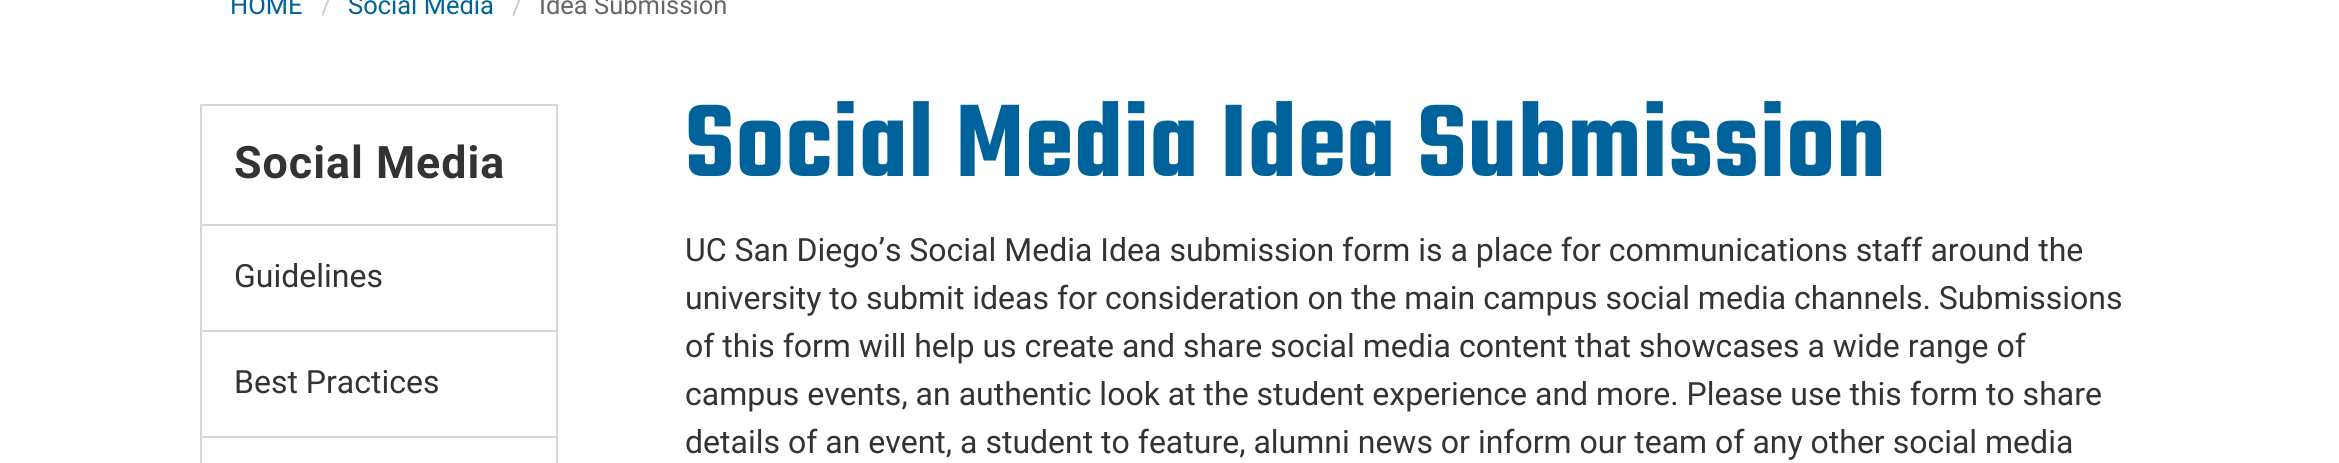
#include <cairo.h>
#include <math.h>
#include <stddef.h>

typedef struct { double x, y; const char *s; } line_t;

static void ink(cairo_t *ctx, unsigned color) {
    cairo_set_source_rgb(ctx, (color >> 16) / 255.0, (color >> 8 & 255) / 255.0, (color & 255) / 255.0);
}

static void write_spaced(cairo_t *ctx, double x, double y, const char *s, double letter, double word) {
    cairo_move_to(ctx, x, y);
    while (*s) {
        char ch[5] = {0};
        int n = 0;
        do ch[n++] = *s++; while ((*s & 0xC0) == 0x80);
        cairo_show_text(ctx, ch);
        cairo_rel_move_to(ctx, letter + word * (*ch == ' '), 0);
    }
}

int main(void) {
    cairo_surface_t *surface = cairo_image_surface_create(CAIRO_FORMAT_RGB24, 2339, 463);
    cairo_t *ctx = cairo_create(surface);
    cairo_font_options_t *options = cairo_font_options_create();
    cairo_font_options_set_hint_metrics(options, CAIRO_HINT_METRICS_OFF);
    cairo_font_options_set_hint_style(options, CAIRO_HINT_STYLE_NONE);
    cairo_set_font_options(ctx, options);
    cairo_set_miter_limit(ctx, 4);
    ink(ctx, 0xFFFFFF);
    cairo_paint(ctx);
    cairo_select_font_face(ctx, "Roboto", CAIRO_FONT_SLANT_NORMAL, CAIRO_FONT_WEIGHT_NORMAL);
    cairo_set_font_size(ctx, 25.5);
    ink(ctx, 0x00629B);
    cairo_move_to(ctx, 230, 14);
    cairo_show_text(ctx, "HOME");
    ink(ctx, 0xCCCCCC);
    cairo_move_to(ctx, 321, 14);
    cairo_show_text(ctx, "/");
    ink(ctx, 0x00629B);
    cairo_move_to(ctx, 348, 14);
    cairo_show_text(ctx, "Social Media");
    ink(ctx, 0xCCCCCC);
    cairo_move_to(ctx, 512, 14);
    cairo_show_text(ctx, "/");
    ink(ctx, 0x666666);
    cairo_move_to(ctx, 539, 14);
    cairo_show_text(ctx, "Idea Submission");
    cairo_rectangle(ctx, 201, 105, 356, 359);
    ink(ctx, 0xD8D7D7);
    cairo_stroke(ctx);
    cairo_select_font_face(ctx, "Roboto", CAIRO_FONT_SLANT_NORMAL, CAIRO_FONT_WEIGHT_BOLD);
    cairo_set_font_size(ctx, 44.75);
    ink(ctx, 0x333333);
    write_spaced(ctx, 234, 178, "Social Media", 1, 0);
    ink(ctx, 0xD8D7D7);
    cairo_rectangle(ctx, 202, 224, 354, 2);
    cairo_fill(ctx);
    cairo_select_font_face(ctx, "Roboto", CAIRO_FONT_SLANT_NORMAL, CAIRO_FONT_WEIGHT_NORMAL);
    cairo_set_font_size(ctx, 32);
    ink(ctx, 0x333333);
    cairo_move_to(ctx, 234, 287);
    cairo_show_text(ctx, "Guidelines");
    ink(ctx, 0xD8D7D7);
    cairo_rectangle(ctx, 202, 330, 354, 2);
    cairo_fill(ctx);
    ink(ctx, 0x333333);
    cairo_move_to(ctx, 234, 393);
    cairo_show_text(ctx, "Best Practices");
    ink(ctx, 0xD8D7D7);
    cairo_rectangle(ctx, 202, 436, 354, 2);
    cairo_fill(ctx);
    cairo_select_font_face(ctx, "Teko SemiBold", CAIRO_FONT_SLANT_NORMAL, CAIRO_FONT_WEIGHT_NORMAL);
    cairo_set_font_size(ctx, 112);
    ink(ctx, 0x00629B);
    write_spaced(ctx, 685, 176, "Social Media Idea Submission", 1, 0);
    cairo_select_font_face(ctx, "Roboto", CAIRO_FONT_SLANT_NORMAL, CAIRO_FONT_WEIGHT_NORMAL);
    cairo_set_font_size(ctx, 32);
    ink(ctx, 0x333333);
    {
        static const line_t items[] = {
            {685, 261, "UC San Diego’s Social Media Idea submission form is a place for communications staff around the"},
            {685, 309, "university to submit ideas for consideration on the main campus social media channels. Submissions"},
            {685, 357, "of this form will help us create and share social media content that showcases a wide range of"},
            {685, 405, "campus events, an authentic look at the student experience and more. Please use this form to share"},
            {685, 453, "details of an event, a student to feature, alumni news or inform our team of any other social media"},
        };
        for (size_t i = 0; i < sizeof items / sizeof *items; i++) {
            cairo_move_to(ctx, items[i].x, items[i].y);
            cairo_show_text(ctx, items[i].s);
        }
    }
    cairo_surface_write_to_png(surface, "image.png");
    cairo_font_options_destroy(options);
    cairo_destroy(ctx);
    cairo_surface_destroy(surface);
    return 0;
}
